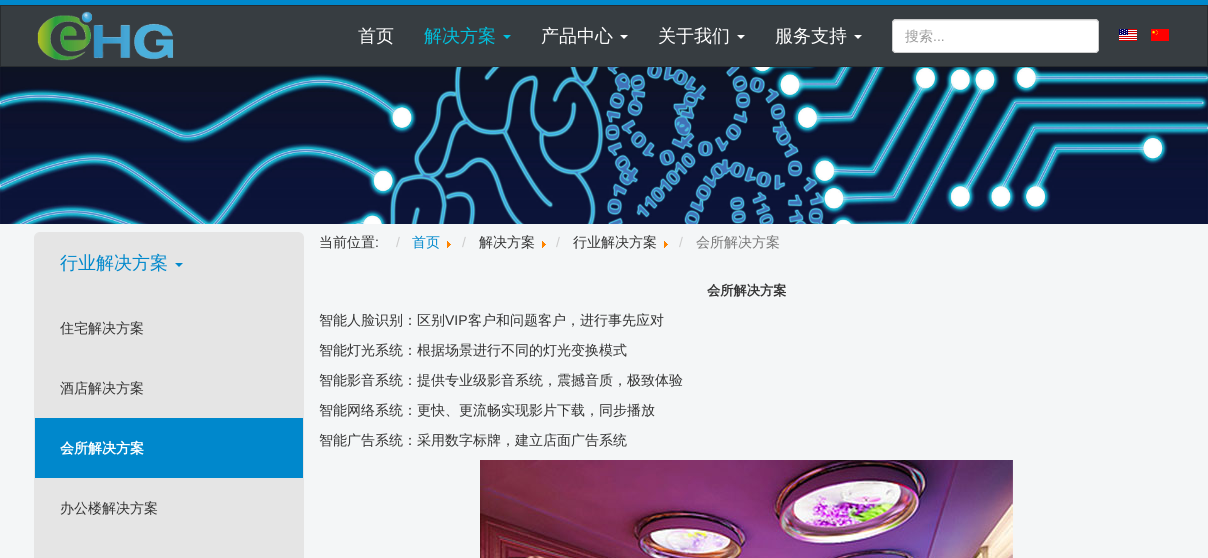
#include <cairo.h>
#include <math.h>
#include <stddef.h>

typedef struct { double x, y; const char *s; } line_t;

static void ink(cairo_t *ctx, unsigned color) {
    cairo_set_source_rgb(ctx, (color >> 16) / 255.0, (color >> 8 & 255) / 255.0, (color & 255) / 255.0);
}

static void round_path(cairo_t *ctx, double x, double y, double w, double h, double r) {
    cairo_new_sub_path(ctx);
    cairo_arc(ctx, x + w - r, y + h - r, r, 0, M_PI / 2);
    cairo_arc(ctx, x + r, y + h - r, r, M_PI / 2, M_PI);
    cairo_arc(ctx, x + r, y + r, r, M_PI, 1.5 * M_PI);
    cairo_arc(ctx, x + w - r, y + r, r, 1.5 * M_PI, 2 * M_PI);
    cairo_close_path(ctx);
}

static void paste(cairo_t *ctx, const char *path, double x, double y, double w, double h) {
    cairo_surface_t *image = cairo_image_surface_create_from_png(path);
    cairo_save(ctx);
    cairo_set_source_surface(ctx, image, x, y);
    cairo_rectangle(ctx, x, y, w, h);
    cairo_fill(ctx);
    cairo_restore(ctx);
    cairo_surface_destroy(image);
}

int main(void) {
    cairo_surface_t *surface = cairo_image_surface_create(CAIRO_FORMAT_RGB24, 1208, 558);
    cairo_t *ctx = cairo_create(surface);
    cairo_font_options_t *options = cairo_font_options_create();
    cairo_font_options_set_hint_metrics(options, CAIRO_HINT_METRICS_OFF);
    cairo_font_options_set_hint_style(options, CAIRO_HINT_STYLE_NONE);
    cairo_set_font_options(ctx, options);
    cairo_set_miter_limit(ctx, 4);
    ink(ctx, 0xF4F6F7);
    cairo_paint(ctx);
    ink(ctx, 0x0088CC);
    cairo_rectangle(ctx, 0, 0, 1208, 5);
    cairo_fill(ctx);
    ink(ctx, 0x373D41);
    cairo_rectangle(ctx, 0.5, 5.5, 1207, 61);
    cairo_fill_preserve(ctx);
    ink(ctx, 0x282C2F);
    cairo_set_line_width(ctx, 1);
    cairo_stroke(ctx);
    paste(ctx, "media/1.png", 37, 11, 137, 50);
    cairo_select_font_face(ctx, "WenQuanYi Zen Hei Medium", CAIRO_FONT_SLANT_NORMAL, CAIRO_FONT_WEIGHT_NORMAL);
    cairo_set_font_size(ctx, 18);
    ink(ctx, 0xFFFFFF);
    cairo_move_to(ctx, 358, 42);
    cairo_show_text(ctx, "首页");
    ink(ctx, 0x00C1DE);
    cairo_move_to(ctx, 424, 42);
    cairo_show_text(ctx, "解决方案");
    cairo_new_path(ctx);
    cairo_move_to(ctx, 503, 35);
    cairo_line_to(ctx, 511, 35);
    cairo_line_to(ctx, 507, 39);
    cairo_close_path(ctx);
    cairo_fill(ctx);
    ink(ctx, 0xFFFFFF);
    cairo_move_to(ctx, 541, 42);
    cairo_show_text(ctx, "产品中心");
    cairo_new_path(ctx);
    cairo_move_to(ctx, 620, 35);
    cairo_line_to(ctx, 628, 35);
    cairo_line_to(ctx, 624, 39);
    cairo_close_path(ctx);
    cairo_fill(ctx);
    cairo_move_to(ctx, 658, 42);
    cairo_show_text(ctx, "关于我们");
    cairo_new_path(ctx);
    cairo_move_to(ctx, 737, 35);
    cairo_line_to(ctx, 745, 35);
    cairo_line_to(ctx, 741, 39);
    cairo_close_path(ctx);
    cairo_fill(ctx);
    cairo_move_to(ctx, 775, 42);
    cairo_show_text(ctx, "服务支持");
    cairo_new_path(ctx);
    cairo_move_to(ctx, 854, 35);
    cairo_line_to(ctx, 862, 35);
    cairo_line_to(ctx, 858, 39);
    cairo_close_path(ctx);
    cairo_fill(ctx);
    round_path(ctx, 892, 19, 207, 34, 4);
    cairo_fill(ctx);
    ink(ctx, 0xECECEC);
    cairo_new_path(ctx);
    cairo_move_to(ctx, 896, 21);
    cairo_line_to(ctx, 1095, 21);
    cairo_curve_to(ctx, 1097, 21, 1098, 22, 1098, 24);
    cairo_curve_to(ctx, 1098, 22, 1097, 20, 1095, 20);
    cairo_line_to(ctx, 896, 20);
    cairo_curve_to(ctx, 894, 20, 893, 22, 893, 24);
    cairo_curve_to(ctx, 893, 22, 894, 21, 896, 21);
    cairo_close_path(ctx);
    cairo_fill(ctx);
    round_path(ctx, 892.5, 19.5, 206, 33, 3.5);
    ink(ctx, 0xCCCCCC);
    cairo_stroke(ctx);
    cairo_set_font_size(ctx, 14);
    ink(ctx, 0x999999);
    cairo_move_to(ctx, 905, 41);
    cairo_show_text(ctx, "搜索");
    cairo_select_font_face(ctx, "Liberation Sans", CAIRO_FONT_SLANT_NORMAL, CAIRO_FONT_WEIGHT_NORMAL);
    cairo_move_to(ctx, 933, 41);
    cairo_show_text(ctx, "...");
    paste(ctx, "media/2.png", 1119, 29, 18, 12);
    paste(ctx, "media/3.png", 1151, 29, 18, 12);
    paste(ctx, "media/4.png", 0, 67, 1208, 157);
    ink(ctx, 0xE5E5E5);
    round_path(ctx, 34.5, 232.5, 269, 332, 5.5);
    cairo_fill_preserve(ctx);
    cairo_stroke(ctx);
    cairo_select_font_face(ctx, "WenQuanYi Zen Hei Medium", CAIRO_FONT_SLANT_NORMAL, CAIRO_FONT_WEIGHT_NORMAL);
    cairo_set_font_size(ctx, 18);
    ink(ctx, 0x0088CC);
    cairo_move_to(ctx, 60, 269);
    cairo_show_text(ctx, "行业解决方案");
    cairo_new_path(ctx);
    cairo_move_to(ctx, 175, 263);
    cairo_line_to(ctx, 183, 263);
    cairo_line_to(ctx, 179, 267);
    cairo_close_path(ctx);
    cairo_fill(ctx);
    cairo_set_font_size(ctx, 14);
    ink(ctx, 0x333333);
    cairo_move_to(ctx, 60, 333);
    cairo_show_text(ctx, "住宅解决方案");
    cairo_move_to(ctx, 60, 393);
    cairo_show_text(ctx, "酒店解决方案");
    ink(ctx, 0x0088CC);
    cairo_rectangle(ctx, 35, 418, 268, 60);
    cairo_fill(ctx);
    cairo_select_font_face(ctx, "WenQuanYi Zen Hei", CAIRO_FONT_SLANT_NORMAL, CAIRO_FONT_WEIGHT_BOLD);
    ink(ctx, 0xFFFFFF);
    cairo_move_to(ctx, 60, 453);
    cairo_show_text(ctx, "会所解决方案");
    cairo_select_font_face(ctx, "WenQuanYi Zen Hei Medium", CAIRO_FONT_SLANT_NORMAL, CAIRO_FONT_WEIGHT_NORMAL);
    ink(ctx, 0x333333);
    cairo_move_to(ctx, 60, 513);
    cairo_show_text(ctx, "办公楼解决方案");
    cairo_move_to(ctx, 319, 247);
    cairo_show_text(ctx, "当前位置");
    cairo_select_font_face(ctx, "Liberation Sans", CAIRO_FONT_SLANT_NORMAL, CAIRO_FONT_WEIGHT_NORMAL);
    cairo_move_to(ctx, 375, 247);
    cairo_show_text(ctx, ":");
    ink(ctx, 0xCCCCCC);
    cairo_move_to(ctx, 396, 247);
    cairo_show_text(ctx, "/");
    cairo_select_font_face(ctx, "WenQuanYi Zen Hei Medium", CAIRO_FONT_SLANT_NORMAL, CAIRO_FONT_WEIGHT_NORMAL);
    ink(ctx, 0x0088CC);
    cairo_move_to(ctx, 412, 247);
    cairo_show_text(ctx, "首页");
    paste(ctx, "media/5.png", 447, 241, 4, 7);
    cairo_select_font_face(ctx, "Liberation Sans", CAIRO_FONT_SLANT_NORMAL, CAIRO_FONT_WEIGHT_NORMAL);
    ink(ctx, 0xCCCCCC);
    cairo_move_to(ctx, 462, 247);
    cairo_show_text(ctx, "/");
    cairo_select_font_face(ctx, "WenQuanYi Zen Hei Medium", CAIRO_FONT_SLANT_NORMAL, CAIRO_FONT_WEIGHT_NORMAL);
    ink(ctx, 0x333333);
    cairo_move_to(ctx, 479, 247);
    cairo_show_text(ctx, "解决方案");
    paste(ctx, "media/5.png", 542, 241, 4, 7);
    cairo_select_font_face(ctx, "Liberation Sans", CAIRO_FONT_SLANT_NORMAL, CAIRO_FONT_WEIGHT_NORMAL);
    ink(ctx, 0xCCCCCC);
    cairo_move_to(ctx, 556, 247);
    cairo_show_text(ctx, "/");
    cairo_select_font_face(ctx, "WenQuanYi Zen Hei Medium", CAIRO_FONT_SLANT_NORMAL, CAIRO_FONT_WEIGHT_NORMAL);
    ink(ctx, 0x333333);
    cairo_move_to(ctx, 573, 247);
    cairo_show_text(ctx, "行业解决方案");
    paste(ctx, "media/5.png", 664, 241, 4, 7);
    cairo_select_font_face(ctx, "Liberation Sans", CAIRO_FONT_SLANT_NORMAL, CAIRO_FONT_WEIGHT_NORMAL);
    ink(ctx, 0xCCCCCC);
    cairo_move_to(ctx, 679, 247);
    cairo_show_text(ctx, "/");
    cairo_select_font_face(ctx, "WenQuanYi Zen Hei Medium", CAIRO_FONT_SLANT_NORMAL, CAIRO_FONT_WEIGHT_NORMAL);
    ink(ctx, 0x777777);
    cairo_move_to(ctx, 696, 247);
    cairo_show_text(ctx, "会所解决方案");
    cairo_select_font_face(ctx, "WenQuanYi Zen Hei", CAIRO_FONT_SLANT_NORMAL, CAIRO_FONT_WEIGHT_BOLD);
    cairo_set_font_size(ctx, 13.25);
    ink(ctx, 0x333333);
    cairo_move_to(ctx, 707, 295);
    cairo_show_text(ctx, "会所解决方案");
    cairo_select_font_face(ctx, "WenQuanYi Zen Hei Medium", CAIRO_FONT_SLANT_NORMAL, CAIRO_FONT_WEIGHT_NORMAL);
    cairo_set_font_size(ctx, 14);
    cairo_move_to(ctx, 319, 325);
    cairo_show_text(ctx, "智能人脸识别：区别");
    cairo_select_font_face(ctx, "Liberation Sans", CAIRO_FONT_SLANT_NORMAL, CAIRO_FONT_WEIGHT_NORMAL);
    cairo_move_to(ctx, 445, 325);
    cairo_show_text(ctx, "VIP");
    cairo_select_font_face(ctx, "WenQuanYi Zen Hei Medium", CAIRO_FONT_SLANT_NORMAL, CAIRO_FONT_WEIGHT_NORMAL);
    {
        static const line_t items[] = {
            {468, 325, "客户和问题客户，进行事先应对"},
            {319, 355, "智能灯光系统：根据场景进行不同的灯光变换模式"},
            {319, 385, "智能影音系统：提供专业级影音系统，震撼音质，极致体验"},
            {319, 415, "智能网络系统：更快、更流畅实现影片下载，同步播放"},
            {319, 445, "智能广告系统：采用数字标牌，建立店面广告系统"},
        };
        for (size_t i = 0; i < sizeof items / sizeof *items; i++) {
            cairo_move_to(ctx, items[i].x, items[i].y);
            cairo_show_text(ctx, items[i].s);
        }
    }
    paste(ctx, "media/6.png", 480, 460, 533, 98);
    cairo_surface_write_to_png(surface, "image.png");
    cairo_font_options_destroy(options);
    cairo_destroy(ctx);
    cairo_surface_destroy(surface);
    return 0;
}
